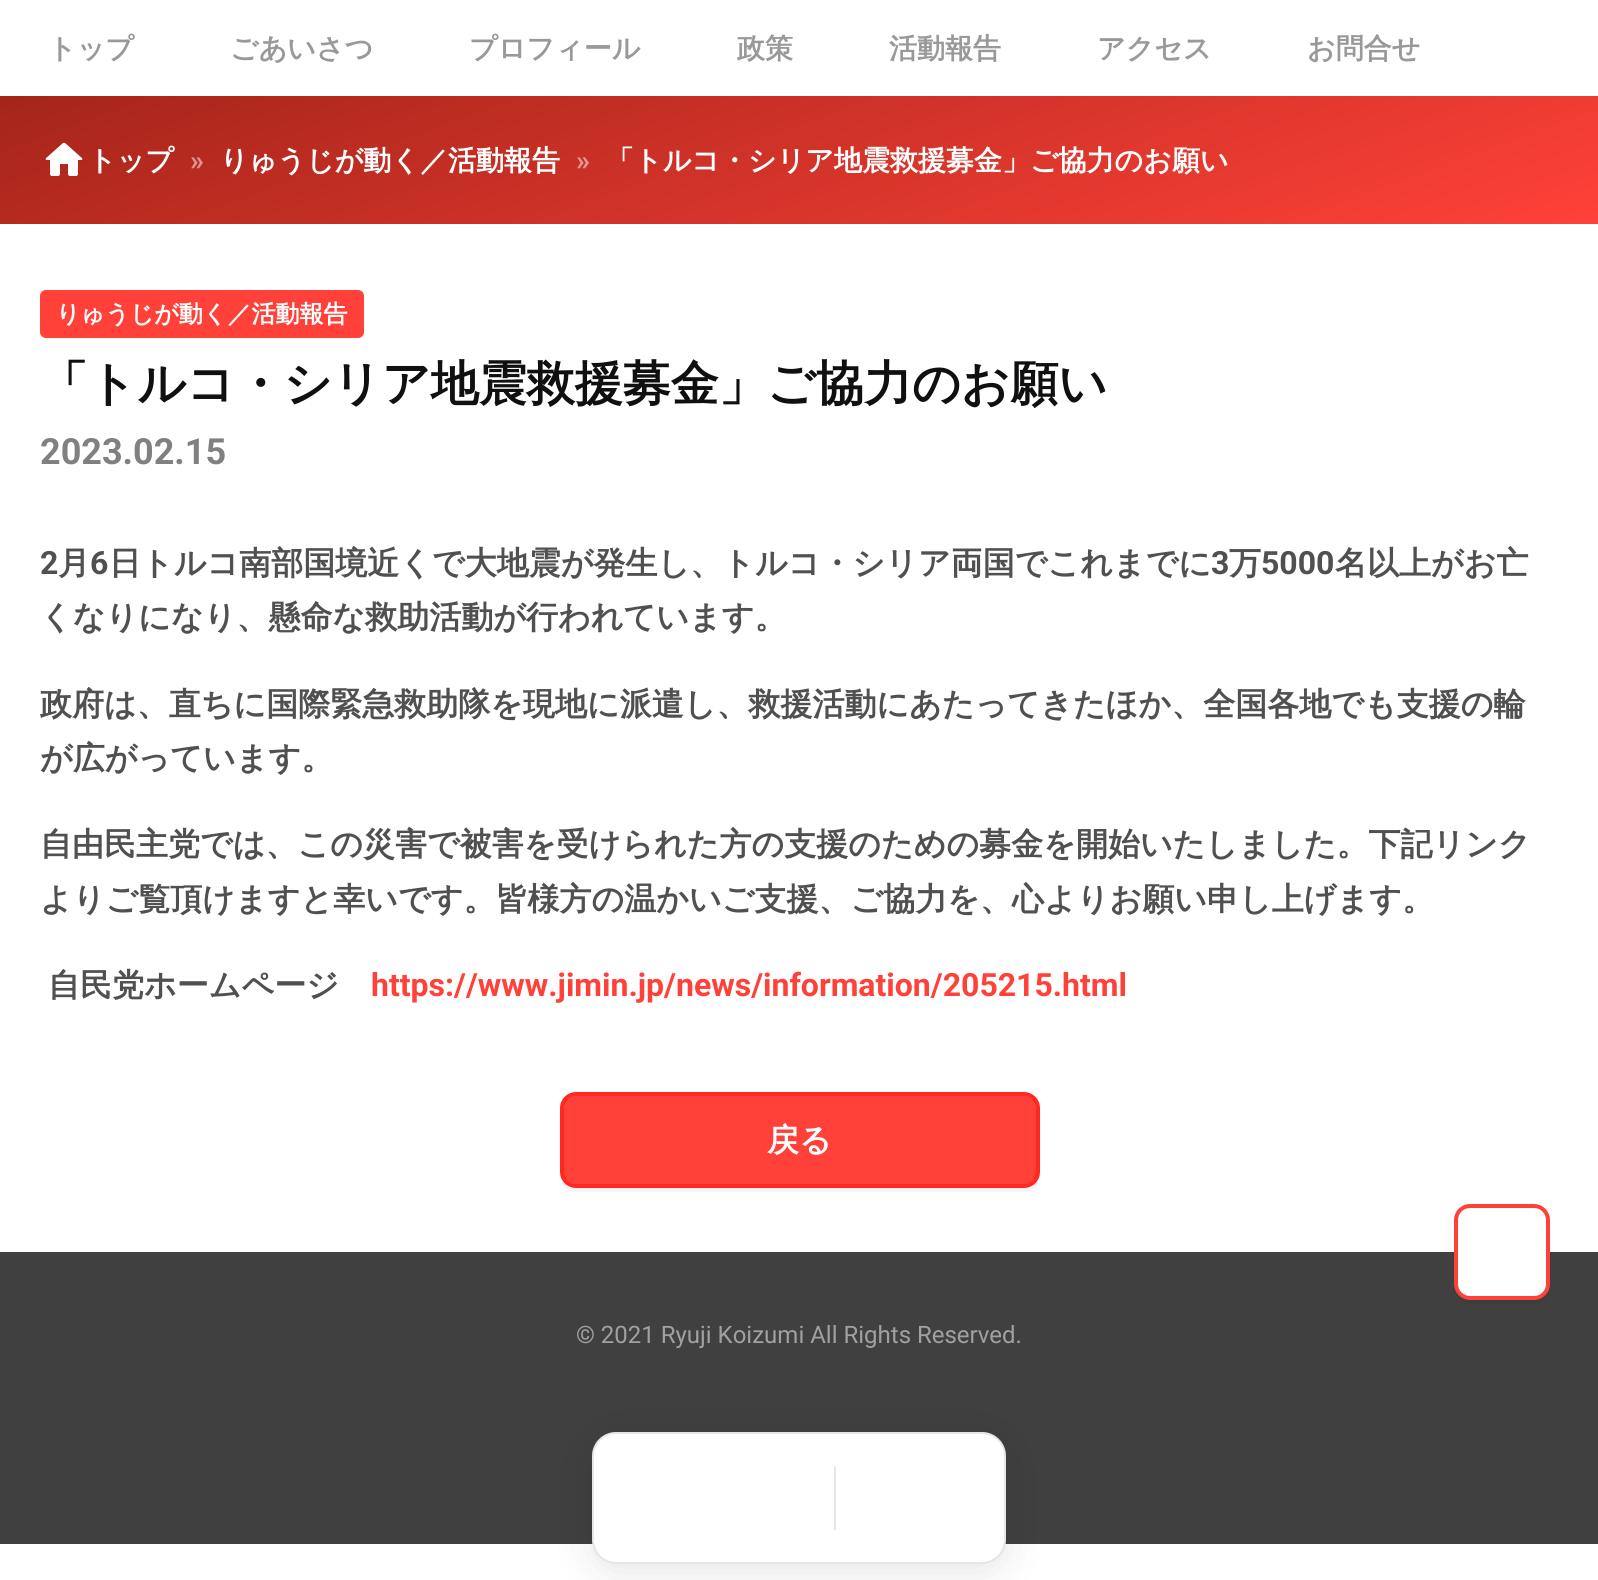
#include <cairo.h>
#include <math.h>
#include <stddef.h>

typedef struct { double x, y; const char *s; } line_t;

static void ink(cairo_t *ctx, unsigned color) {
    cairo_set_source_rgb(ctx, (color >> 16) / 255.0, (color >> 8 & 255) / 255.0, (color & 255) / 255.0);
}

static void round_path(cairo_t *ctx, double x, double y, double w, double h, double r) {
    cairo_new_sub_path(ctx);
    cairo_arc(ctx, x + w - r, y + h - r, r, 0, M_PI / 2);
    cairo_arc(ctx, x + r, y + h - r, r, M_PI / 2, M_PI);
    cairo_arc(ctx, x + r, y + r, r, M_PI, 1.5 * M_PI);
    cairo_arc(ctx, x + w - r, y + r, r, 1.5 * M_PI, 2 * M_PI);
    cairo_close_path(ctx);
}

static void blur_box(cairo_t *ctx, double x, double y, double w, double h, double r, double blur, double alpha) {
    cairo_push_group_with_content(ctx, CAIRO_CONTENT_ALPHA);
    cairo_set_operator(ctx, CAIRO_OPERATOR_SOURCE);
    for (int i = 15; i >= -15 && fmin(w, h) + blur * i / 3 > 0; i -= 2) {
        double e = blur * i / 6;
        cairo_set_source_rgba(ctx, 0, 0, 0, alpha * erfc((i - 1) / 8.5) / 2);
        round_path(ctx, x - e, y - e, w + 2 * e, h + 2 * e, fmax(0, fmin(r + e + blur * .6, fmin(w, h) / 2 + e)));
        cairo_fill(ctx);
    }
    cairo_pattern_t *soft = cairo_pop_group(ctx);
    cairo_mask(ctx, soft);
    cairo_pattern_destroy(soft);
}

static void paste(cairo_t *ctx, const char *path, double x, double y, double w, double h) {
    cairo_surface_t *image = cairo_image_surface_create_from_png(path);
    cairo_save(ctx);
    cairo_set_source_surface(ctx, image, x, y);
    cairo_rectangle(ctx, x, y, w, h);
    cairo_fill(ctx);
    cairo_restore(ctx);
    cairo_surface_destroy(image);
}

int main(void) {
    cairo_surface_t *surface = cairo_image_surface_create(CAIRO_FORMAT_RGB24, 1598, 1580);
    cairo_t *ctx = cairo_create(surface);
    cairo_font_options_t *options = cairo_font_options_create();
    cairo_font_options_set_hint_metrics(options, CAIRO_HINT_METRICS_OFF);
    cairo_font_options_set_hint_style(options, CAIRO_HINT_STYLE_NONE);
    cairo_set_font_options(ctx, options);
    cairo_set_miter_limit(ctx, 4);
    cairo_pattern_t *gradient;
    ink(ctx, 0xFFFFFF);
    cairo_paint(ctx);
    cairo_select_font_face(ctx, "WenQuanYi Zen Hei", CAIRO_FONT_SLANT_NORMAL, CAIRO_FONT_WEIGHT_BOLD);
    cairo_set_font_size(ctx, 28);
    ink(ctx, 0x999999);
    {
        static const line_t items[] = {
            {48, 58, "トップ"},
            {230, 58, "ごあいさつ"},
            {469, 58, "プロフィール"},
            {737, 58, "政策"},
            {889, 58, "活動報告"},
            {1097, 58, "アクセス"},
            {1307, 58, "お問合せ"},
        };
        for (size_t i = 0; i < sizeof items / sizeof *items; i++) {
            cairo_move_to(ctx, items[i].x, items[i].y);
            cairo_show_text(ctx, items[i].s);
        }
    }
    gradient = cairo_pattern_create_linear(913, 473, 685, -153);
    cairo_pattern_add_color_stop_rgba(gradient, 0, 1, 0.255, 0.224, 1);
    cairo_pattern_add_color_stop_rgba(gradient, 1, 0.647, 0.145, 0.098, 1);
    cairo_set_source(ctx, gradient);
    cairo_pattern_destroy(gradient);
    cairo_rectangle(ctx, 0, 96, 1598, 128);
    cairo_fill(ctx);
    paste(ctx, "media/1.png", 45, 142, 38, 34);
    ink(ctx, 0xFFFFFF);
    cairo_move_to(ctx, 88, 170);
    cairo_show_text(ctx, "トップ");
    cairo_select_font_face(ctx, "Roboto", CAIRO_FONT_SLANT_NORMAL, CAIRO_FONT_WEIGHT_BOLD);
    ink(ctx, 0xDB958F);
    cairo_move_to(ctx, 190, 170);
    cairo_show_text(ctx, "»");
    cairo_select_font_face(ctx, "WenQuanYi Zen Hei", CAIRO_FONT_SLANT_NORMAL, CAIRO_FONT_WEIGHT_BOLD);
    ink(ctx, 0xFFFFFF);
    cairo_move_to(ctx, 220, 170);
    cairo_show_text(ctx, "りゅうじが動く／活動報告");
    cairo_select_font_face(ctx, "Roboto", CAIRO_FONT_SLANT_NORMAL, CAIRO_FONT_WEIGHT_BOLD);
    ink(ctx, 0xE49892);
    cairo_move_to(ctx, 576, 170);
    cairo_show_text(ctx, "»");
    cairo_select_font_face(ctx, "WenQuanYi Zen Hei", CAIRO_FONT_SLANT_NORMAL, CAIRO_FONT_WEIGHT_BOLD);
    ink(ctx, 0xFFFFFF);
    cairo_move_to(ctx, 606, 170);
    cairo_show_text(ctx, "「トルコ・シリア地震救援募金」ご協力のお願い");
    ink(ctx, 0xFF4139);
    round_path(ctx, 40, 290, 324, 48, 6);
    cairo_fill(ctx);
    cairo_set_font_size(ctx, 24);
    ink(ctx, 0xFFFFFF);
    cairo_move_to(ctx, 56, 322);
    cairo_show_text(ctx, "りゅうじが動く／活動報告");
    cairo_set_font_size(ctx, 48);
    ink(ctx, 0x101010);
    cairo_move_to(ctx, 40, 400);
    cairo_show_text(ctx, "「トルコ・シリア地震救援募金」ご協力のお願い");
    cairo_select_font_face(ctx, "Roboto", CAIRO_FONT_SLANT_NORMAL, CAIRO_FONT_WEIGHT_BOLD);
    cairo_set_font_size(ctx, 36);
    ink(ctx, 0x808080);
    cairo_move_to(ctx, 40, 464);
    cairo_show_text(ctx, "2023.02.15");
    cairo_set_font_size(ctx, 32);
    ink(ctx, 0x505050);
    cairo_move_to(ctx, 40, 574);
    cairo_show_text(ctx, "2");
    cairo_select_font_face(ctx, "WenQuanYi Zen Hei", CAIRO_FONT_SLANT_NORMAL, CAIRO_FONT_WEIGHT_BOLD);
    cairo_move_to(ctx, 58, 574);
    cairo_show_text(ctx, "月");
    cairo_select_font_face(ctx, "Roboto", CAIRO_FONT_SLANT_NORMAL, CAIRO_FONT_WEIGHT_BOLD);
    cairo_move_to(ctx, 90, 574);
    cairo_show_text(ctx, "6");
    cairo_select_font_face(ctx, "WenQuanYi Zen Hei", CAIRO_FONT_SLANT_NORMAL, CAIRO_FONT_WEIGHT_BOLD);
    cairo_move_to(ctx, 109, 574);
    cairo_show_text(ctx, "日トルコ南部国境近くで大地震が発生し、トルコ・シリア両国でこれまでに");
    cairo_select_font_face(ctx, "Roboto", CAIRO_FONT_SLANT_NORMAL, CAIRO_FONT_WEIGHT_BOLD);
    cairo_move_to(ctx, 1211, 574);
    cairo_show_text(ctx, "3");
    cairo_select_font_face(ctx, "WenQuanYi Zen Hei", CAIRO_FONT_SLANT_NORMAL, CAIRO_FONT_WEIGHT_BOLD);
    cairo_move_to(ctx, 1229, 574);
    cairo_show_text(ctx, "万");
    cairo_select_font_face(ctx, "Roboto", CAIRO_FONT_SLANT_NORMAL, CAIRO_FONT_WEIGHT_BOLD);
    cairo_move_to(ctx, 1261, 574);
    cairo_show_text(ctx, "5000");
    cairo_select_font_face(ctx, "WenQuanYi Zen Hei", CAIRO_FONT_SLANT_NORMAL, CAIRO_FONT_WEIGHT_BOLD);
    {
        static const line_t items[] = {
            {1335, 574, "名以上がお亡"},
            {40, 628, "くなりになり、懸命な救助活動が行われています。"},
            {40, 715, "政府は、直ちに国際緊急救助隊を現地に派遣し、救援活動にあたってきたほか、全国各地でも支援の輪"},
            {40, 769, "が広がっています。"},
            {40, 855, "自由民主党では、この災害で被害を受けられた方の支援のための募金を開始いたしました。下記リンク"},
            {40, 910, "よりご覧頂けますと幸いです。皆様方の温かいご支援、ご協力を、心よりお願い申し上げます。"},
            {48, 996, "自民党ホームページ"},
        };
        for (size_t i = 0; i < sizeof items / sizeof *items; i++) {
            cairo_move_to(ctx, items[i].x, items[i].y);
            cairo_show_text(ctx, items[i].s);
        }
    }
    cairo_select_font_face(ctx, "Roboto", CAIRO_FONT_SLANT_NORMAL, CAIRO_FONT_WEIGHT_BOLD);
    ink(ctx, 0xFF4139);
    cairo_move_to(ctx, 371, 996);
    cairo_show_text(ctx, "https://www.jimin.jp/news/information/205215.html");
    ink(ctx, 0x000000);
    blur_box(ctx, 560, 1096, 480, 96, 16, 1, 0.05);
    ink(ctx, 0xFF4139);
    round_path(ctx, 562, 1094, 476, 92, 14);
    cairo_fill_preserve(ctx);
    ink(ctx, 0xFF2920);
    cairo_set_line_width(ctx, 4);
    cairo_stroke(ctx);
    cairo_select_font_face(ctx, "WenQuanYi Zen Hei", CAIRO_FONT_SLANT_NORMAL, CAIRO_FONT_WEIGHT_BOLD);
    ink(ctx, 0xFFFFFF);
    cairo_move_to(ctx, 767, 1151);
    cairo_show_text(ctx, "戻る");
    ink(ctx, 0x404040);
    cairo_rectangle(ctx, 0, 1252, 1598, 292);
    cairo_fill(ctx);
    ink(ctx, 0x000000);
    blur_box(ctx, 1454, 1208, 96, 96, 16, 1, 0.05);
    ink(ctx, 0xFFFFFF);
    round_path(ctx, 1456, 1206, 92, 92, 14);
    cairo_fill_preserve(ctx);
    ink(ctx, 0xFF4139);
    cairo_stroke(ctx);
    cairo_select_font_face(ctx, "Roboto", CAIRO_FONT_SLANT_NORMAL, CAIRO_FONT_WEIGHT_NORMAL);
    cairo_set_font_size(ctx, 24);
    ink(ctx, 0xA0A0A0);
    cairo_move_to(ctx, 576, 1343);
    cairo_show_text(ctx, "© 2021 Ryuji Koizumi All Rights Reserved.");
    ink(ctx, 0x000000);
    blur_box(ctx, 592, 1440, 414, 132, 24, 20, 0.1);
    ink(ctx, 0xFFFFFF);
    round_path(ctx, 592, 1432, 414, 132, 24);
    cairo_fill(ctx);
    round_path(ctx, 593, 1433, 412, 130, 23);
    cairo_set_source_rgba(ctx, 0, 0, 0, 0.1);
    cairo_set_line_width(ctx, 2);
    cairo_stroke(ctx);
    ink(ctx, 0xE6E6E6);
    cairo_rectangle(ctx, 834, 1466, 2, 64);
    cairo_fill(ctx);
    cairo_surface_write_to_png(surface, "image.png");
    cairo_font_options_destroy(options);
    cairo_destroy(ctx);
    cairo_surface_destroy(surface);
    return 0;
}
